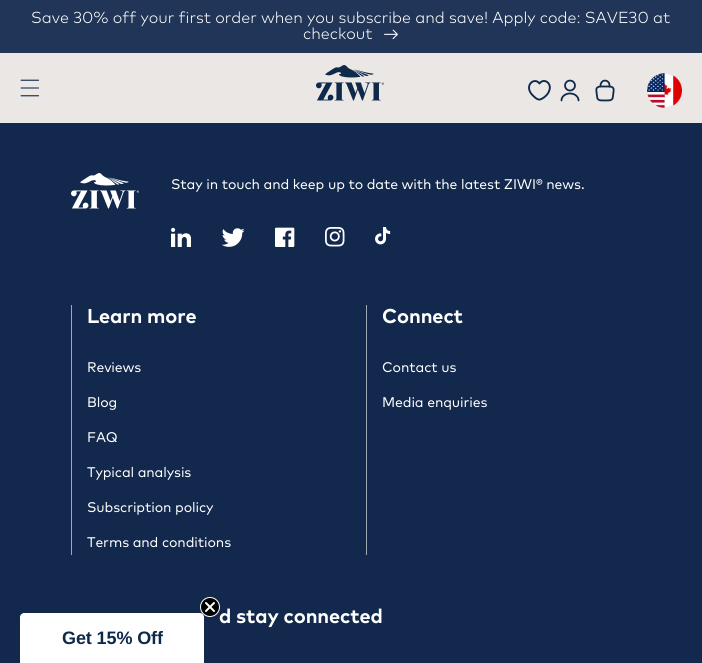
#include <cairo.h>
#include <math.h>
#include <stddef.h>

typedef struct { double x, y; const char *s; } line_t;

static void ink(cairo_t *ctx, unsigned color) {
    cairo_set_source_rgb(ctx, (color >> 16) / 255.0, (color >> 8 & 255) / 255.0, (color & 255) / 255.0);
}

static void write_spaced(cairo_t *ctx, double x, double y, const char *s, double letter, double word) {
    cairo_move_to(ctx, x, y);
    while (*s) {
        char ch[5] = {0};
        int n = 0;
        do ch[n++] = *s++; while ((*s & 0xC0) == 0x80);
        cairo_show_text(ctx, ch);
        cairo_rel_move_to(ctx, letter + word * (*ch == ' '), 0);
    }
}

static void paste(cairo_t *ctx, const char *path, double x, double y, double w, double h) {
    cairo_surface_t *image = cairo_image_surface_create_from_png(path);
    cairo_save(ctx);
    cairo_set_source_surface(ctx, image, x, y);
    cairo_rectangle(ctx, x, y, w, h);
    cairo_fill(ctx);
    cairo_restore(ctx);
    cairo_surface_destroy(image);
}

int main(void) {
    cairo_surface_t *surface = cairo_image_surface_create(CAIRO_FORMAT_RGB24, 702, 663);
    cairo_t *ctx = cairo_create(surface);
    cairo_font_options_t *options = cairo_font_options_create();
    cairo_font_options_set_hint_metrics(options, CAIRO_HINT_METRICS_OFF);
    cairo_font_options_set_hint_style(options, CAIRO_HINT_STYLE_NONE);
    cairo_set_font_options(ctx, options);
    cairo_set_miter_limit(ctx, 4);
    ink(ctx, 0xEAE7E5);
    cairo_paint(ctx);
    ink(ctx, 0x25395A);
    cairo_rectangle(ctx, 0, 52, 702, 1);
    cairo_fill(ctx);
    ink(ctx, 0x203557);
    cairo_rectangle(ctx, 0, 0, 702, 52);
    cairo_fill(ctx);
    cairo_select_font_face(ctx, "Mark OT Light", CAIRO_FONT_SLANT_NORMAL, CAIRO_FONT_WEIGHT_NORMAL);
    cairo_set_font_size(ctx, 16);
    ink(ctx, 0xFFFFFF);
    cairo_move_to(ctx, 31, 23);
    cairo_show_text(ctx, "Save 30% off your first order when you subscribe and save! Apply code: SAVE30 at");
    cairo_move_to(ctx, 303, 39);
    cairo_show_text(ctx, "checkout");
    paste(ctx, "media/1.png", 384, 29, 14, 11);
    paste(ctx, "media/2.png", 20, 79, 20, 18);
    paste(ctx, "media/3.png", 316, 65, 68, 36);
    cairo_new_path(ctx);
    cairo_move_to(ctx, 540, 99.5);
    cairo_curve_to(ctx, 538, 100, 535.5, 98, 534.5, 97);
    cairo_curve_to(ctx, 522, 87, 534, 76, 539.5, 83.5);
    cairo_curve_to(ctx, 544, 77, 554.5, 84, 547.5, 94);
    cairo_curve_to(ctx, 545.5, 96.5, 543, 98.5, 540, 99.5);
    cairo_close_path(ctx);
    ink(ctx, 0x0F294A);
    cairo_set_line_width(ctx, 1.9);
    cairo_set_line_cap(ctx, CAIRO_LINE_CAP_ROUND);
    cairo_set_line_join(ctx, CAIRO_LINE_JOIN_ROUND);
    cairo_stroke(ctx);
    paste(ctx, "media/4.png", 560, 79, 20, 23);
    paste(ctx, "media/5.png", 595, 79, 20, 23);
    paste(ctx, "media/6.png", 647, 73, 35, 35);
    ink(ctx, 0x12284C);
    cairo_rectangle(ctx, 0, 123, 702, 540);
    cairo_fill(ctx);
    paste(ctx, "media/7.png", 71, 173, 68, 36);
    cairo_select_font_face(ctx, "Mark OT", CAIRO_FONT_SLANT_NORMAL, CAIRO_FONT_WEIGHT_NORMAL);
    cairo_set_font_size(ctx, 14);
    ink(ctx, 0xFFFFFF);
    write_spaced(ctx, 171, 189, "Stay in touch and keep up to date with the latest ZIWI® news.", -0.1, 0);
    paste(ctx, "media/8.png", 171, 227, 20, 20);
    paste(ctx, "media/9.png", 221, 228, 24, 19);
    paste(ctx, "media/10.png", 275, 227, 20, 20);
    paste(ctx, "media/11.png", 325, 227, 20, 20);
    paste(ctx, "media/12.png", 375, 227, 16, 18);
    ink(ctx, 0x9FAAB7);
    cairo_rectangle(ctx, 71, 305, 1, 250);
    cairo_fill(ctx);
    cairo_select_font_face(ctx, "Mark OT", CAIRO_FONT_SLANT_NORMAL, CAIRO_FONT_WEIGHT_BOLD);
    cairo_set_font_size(ctx, 20);
    ink(ctx, 0xFFFFFF);
    write_spaced(ctx, 87, 323, "Learn more", -0.1, 0);
    cairo_select_font_face(ctx, "Mark OT", CAIRO_FONT_SLANT_NORMAL, CAIRO_FONT_WEIGHT_NORMAL);
    cairo_set_font_size(ctx, 14);
    {
        static const line_t items[] = {
            {87, 372, "Reviews"},
            {87, 407, "Blog"},
            {87, 442, "FAQ"},
            {87, 477, "Typical analysis"},
            {87, 512, "Subscription policy"},
            {87, 547, "Terms and conditions"},
        };
        for (size_t i = 0; i < sizeof items / sizeof *items; i++) {
            write_spaced(ctx, items[i].x, items[i].y, items[i].s, -0.1, 0);
        }
    }
    ink(ctx, 0x9FAAB7);
    cairo_rectangle(ctx, 366, 305, 1, 250);
    cairo_fill(ctx);
    cairo_select_font_face(ctx, "Mark OT", CAIRO_FONT_SLANT_NORMAL, CAIRO_FONT_WEIGHT_BOLD);
    cairo_set_font_size(ctx, 20);
    ink(ctx, 0xFFFFFF);
    write_spaced(ctx, 382, 323, "Connect", -0.1, 0);
    cairo_select_font_face(ctx, "Mark OT", CAIRO_FONT_SLANT_NORMAL, CAIRO_FONT_WEIGHT_NORMAL);
    cairo_set_font_size(ctx, 14);
    write_spaced(ctx, 382, 372, "Contact us", -0.1, 0);
    write_spaced(ctx, 382, 407, "Media enquiries", -0.1, 0);
    cairo_select_font_face(ctx, "Mark OT", CAIRO_FONT_SLANT_NORMAL, CAIRO_FONT_WEIGHT_BOLD);
    cairo_set_font_size(ctx, 20);
    write_spaced(ctx, 219, 623, "d stay connected", -0.1, 0);
    cairo_new_path(ctx);
    cairo_move_to(ctx, 24, 613);
    cairo_line_to(ctx, 200, 613);
    cairo_curve_to(ctx, 202, 613, 204, 615, 204, 617);
    cairo_line_to(ctx, 204, 663);
    cairo_line_to(ctx, 20, 663);
    cairo_line_to(ctx, 20, 617);
    cairo_curve_to(ctx, 20, 615, 22, 613, 24, 613);
    cairo_close_path(ctx);
    cairo_fill(ctx);
    paste(ctx, "media/13.png", 200, 597, 20, 20);
    cairo_select_font_face(ctx, "Liberation Sans", CAIRO_FONT_SLANT_NORMAL, CAIRO_FONT_WEIGHT_BOLD);
    cairo_set_font_size(ctx, 18);
    ink(ctx, 0x0F294A);
    write_spaced(ctx, 62, 644, "Get 15% Off", -0.1, 0);
    cairo_surface_write_to_png(surface, "image.png");
    cairo_font_options_destroy(options);
    cairo_destroy(ctx);
    cairo_surface_destroy(surface);
    return 0;
}
